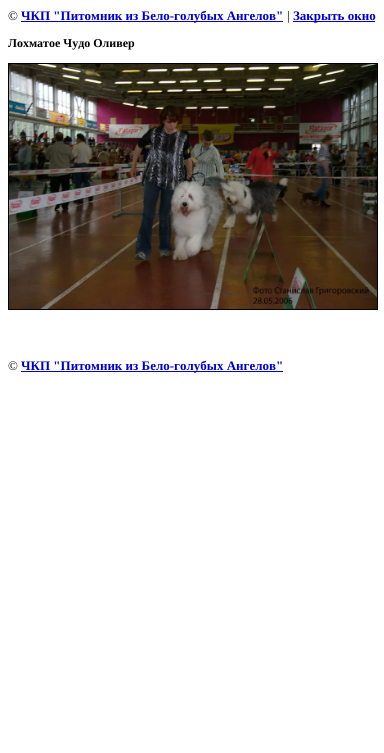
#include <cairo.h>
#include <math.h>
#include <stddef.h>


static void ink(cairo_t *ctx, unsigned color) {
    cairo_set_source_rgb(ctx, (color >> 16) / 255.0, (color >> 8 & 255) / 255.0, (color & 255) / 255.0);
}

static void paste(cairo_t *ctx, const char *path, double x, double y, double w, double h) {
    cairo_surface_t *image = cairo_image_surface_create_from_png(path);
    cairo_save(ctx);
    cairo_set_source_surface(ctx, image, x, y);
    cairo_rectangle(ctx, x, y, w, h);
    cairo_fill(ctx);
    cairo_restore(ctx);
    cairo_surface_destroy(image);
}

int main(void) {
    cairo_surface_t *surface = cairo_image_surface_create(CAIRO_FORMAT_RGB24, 384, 753);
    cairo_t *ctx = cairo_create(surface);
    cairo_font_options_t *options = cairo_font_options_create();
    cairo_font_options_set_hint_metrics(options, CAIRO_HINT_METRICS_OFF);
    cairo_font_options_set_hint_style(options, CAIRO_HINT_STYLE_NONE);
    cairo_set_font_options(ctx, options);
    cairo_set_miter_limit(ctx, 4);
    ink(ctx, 0xFFFFFF);
    cairo_paint(ctx);
    cairo_select_font_face(ctx, "Liberation Serif", CAIRO_FONT_SLANT_NORMAL, CAIRO_FONT_WEIGHT_NORMAL);
    cairo_set_font_size(ctx, 13);
    ink(ctx, 0x000000);
    cairo_move_to(ctx, 8, 20);
    cairo_show_text(ctx, "©");
    ink(ctx, 0x0000CC);
    cairo_rectangle(ctx, 21, 21, 262, 1);
    cairo_fill(ctx);
    cairo_select_font_face(ctx, "Liberation Serif", CAIRO_FONT_SLANT_NORMAL, CAIRO_FONT_WEIGHT_BOLD);
    cairo_move_to(ctx, 21, 20);
    cairo_show_text(ctx, "ЧКП \"Питомник из Бело-голубых Ангелов\"");
    cairo_select_font_face(ctx, "Liberation Serif", CAIRO_FONT_SLANT_NORMAL, CAIRO_FONT_WEIGHT_NORMAL);
    ink(ctx, 0x000000);
    cairo_move_to(ctx, 287, 20);
    cairo_show_text(ctx, "|");
    ink(ctx, 0x0000CC);
    cairo_rectangle(ctx, 293, 21, 82, 1);
    cairo_fill(ctx);
    cairo_select_font_face(ctx, "Liberation Serif", CAIRO_FONT_SLANT_NORMAL, CAIRO_FONT_WEIGHT_BOLD);
    cairo_move_to(ctx, 293, 20);
    cairo_show_text(ctx, "Закрыть окно");
    cairo_set_font_size(ctx, 12);
    ink(ctx, 0x000000);
    cairo_move_to(ctx, 8, 47);
    cairo_show_text(ctx, "Лохматое Чудо Оливер");
    cairo_rectangle(ctx, 8.5, 63.5, 369, 246);
    cairo_set_line_width(ctx, 1);
    cairo_stroke(ctx);
    paste(ctx, "media/1.png", 9, 64, 368, 245);
    cairo_select_font_face(ctx, "Liberation Serif", CAIRO_FONT_SLANT_NORMAL, CAIRO_FONT_WEIGHT_NORMAL);
    cairo_set_font_size(ctx, 13);
    cairo_move_to(ctx, 8, 370);
    cairo_show_text(ctx, "©");
    ink(ctx, 0x0000CC);
    cairo_rectangle(ctx, 21, 371, 262, 1);
    cairo_fill(ctx);
    cairo_select_font_face(ctx, "Liberation Serif", CAIRO_FONT_SLANT_NORMAL, CAIRO_FONT_WEIGHT_BOLD);
    cairo_move_to(ctx, 21, 370);
    cairo_show_text(ctx, "ЧКП \"Питомник из Бело-голубых Ангелов\"");
    cairo_surface_write_to_png(surface, "image.png");
    cairo_font_options_destroy(options);
    cairo_destroy(ctx);
    cairo_surface_destroy(surface);
    return 0;
}
